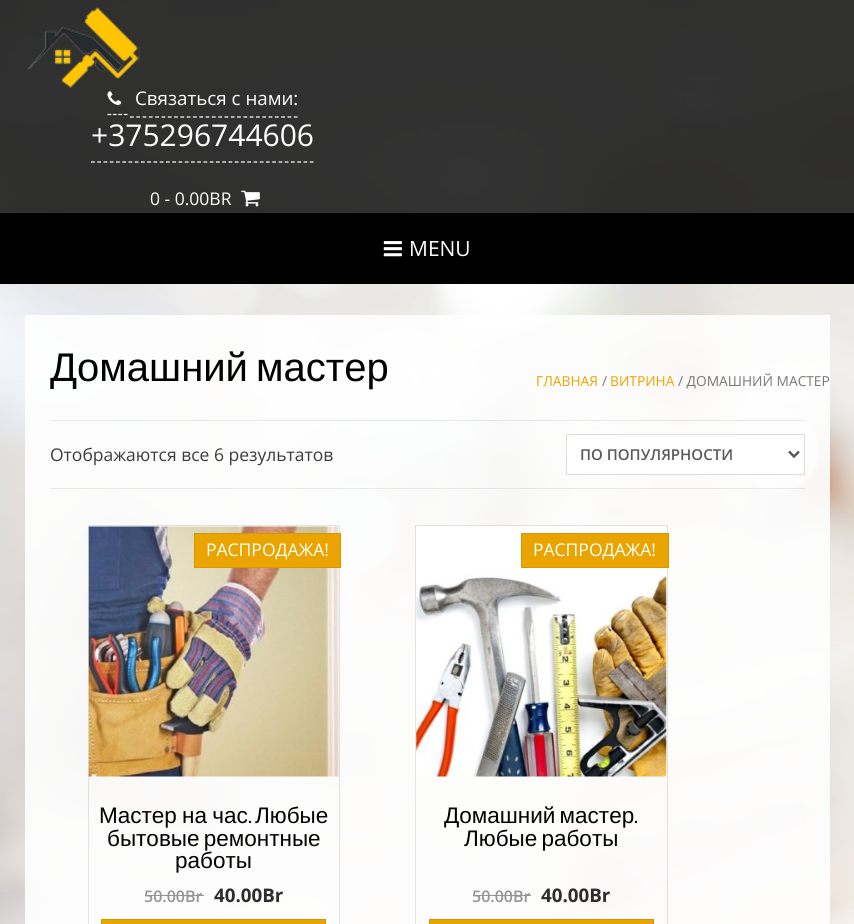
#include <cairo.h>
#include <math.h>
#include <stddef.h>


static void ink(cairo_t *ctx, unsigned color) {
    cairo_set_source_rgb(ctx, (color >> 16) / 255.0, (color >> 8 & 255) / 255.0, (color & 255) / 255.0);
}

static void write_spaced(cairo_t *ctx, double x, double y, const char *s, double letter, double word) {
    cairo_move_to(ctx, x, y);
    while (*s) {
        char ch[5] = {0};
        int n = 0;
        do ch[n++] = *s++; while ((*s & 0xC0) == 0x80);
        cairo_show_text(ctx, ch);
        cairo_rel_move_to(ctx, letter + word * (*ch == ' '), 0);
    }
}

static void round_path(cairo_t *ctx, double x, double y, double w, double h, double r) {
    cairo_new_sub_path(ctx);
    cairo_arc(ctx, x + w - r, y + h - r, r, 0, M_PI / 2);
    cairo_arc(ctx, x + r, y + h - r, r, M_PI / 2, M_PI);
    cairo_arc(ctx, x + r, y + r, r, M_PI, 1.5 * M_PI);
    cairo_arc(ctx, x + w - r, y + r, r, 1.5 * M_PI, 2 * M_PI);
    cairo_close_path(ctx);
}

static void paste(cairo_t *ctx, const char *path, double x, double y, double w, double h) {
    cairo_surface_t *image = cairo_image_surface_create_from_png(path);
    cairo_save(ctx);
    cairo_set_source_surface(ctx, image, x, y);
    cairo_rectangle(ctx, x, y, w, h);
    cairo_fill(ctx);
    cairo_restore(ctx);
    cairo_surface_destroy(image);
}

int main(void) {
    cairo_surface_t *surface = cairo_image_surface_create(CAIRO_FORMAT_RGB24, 854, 924);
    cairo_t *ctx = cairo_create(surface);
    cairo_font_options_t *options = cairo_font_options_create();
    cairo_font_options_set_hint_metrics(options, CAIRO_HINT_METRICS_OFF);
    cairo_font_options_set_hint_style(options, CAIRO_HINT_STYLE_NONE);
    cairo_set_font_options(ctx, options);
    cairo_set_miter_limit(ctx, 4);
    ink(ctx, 0xFFFFFF);
    cairo_paint(ctx);
    paste(ctx, "media/1.png", 0, 0, 854, 924);
    cairo_set_source_rgba(ctx, 0, 0, 0, 0.8);
    cairo_rectangle(ctx, 0, 0, 854, 213);
    cairo_fill(ctx);
    paste(ctx, "media/2.png", 27, 7, 113, 81);
    cairo_new_path(ctx);
    cairo_move_to(ctx, 107.5, 114.5);
    cairo_line_to(ctx, 127.5, 114.5);
    ink(ctx, 0xFFFFFF);
    cairo_set_line_width(ctx, 1.2);
    cairo_set_dash(ctx, (double[]){3.75, 1.66}, 2, 0);
    cairo_stroke(ctx);
    cairo_new_path(ctx);
    cairo_move_to(ctx, 130, 117);
    cairo_line_to(ctx, 297.5, 117);
    cairo_set_dash(ctx, (double[]){3.75, 2.55}, 2, 0);
    cairo_stroke(ctx);
    cairo_new_path(ctx);
    cairo_move_to(ctx, 91, 162);
    cairo_line_to(ctx, 314, 162);
    cairo_set_dash(ctx, (double[]){3.75, 2.5}, 2, 0);
    cairo_stroke(ctx);
    paste(ctx, "media/3.png", 107, 91, 15, 14);
    cairo_select_font_face(ctx, "Open Sans", CAIRO_FONT_SLANT_NORMAL, CAIRO_FONT_WEIGHT_NORMAL);
    cairo_set_font_size(ctx, 18.75);
    cairo_move_to(ctx, 135, 105);
    cairo_show_text(ctx, "Связаться с нами:");
    cairo_set_font_size(ctx, 30);
    cairo_move_to(ctx, 91, 146);
    cairo_show_text(ctx, "+375296744606");
    cairo_set_font_size(ctx, 17.5);
    cairo_move_to(ctx, 150, 205);
    cairo_show_text(ctx, "0 - 0.00BR");
    paste(ctx, "media/4.png", 241, 190, 19, 17);
    ink(ctx, 0x000000);
    cairo_rectangle(ctx, 0, 213, 854, 71);
    cairo_fill(ctx);
    paste(ctx, "media/5.png", 383, 241, 19, 16);
    cairo_set_font_size(ctx, 21);
    ink(ctx, 0xFFFFFF);
    cairo_move_to(ctx, 409, 256);
    cairo_show_text(ctx, "MENU");
    cairo_set_source_rgba(ctx, 1, 1, 1, 0.9);
    cairo_rectangle(ctx, 25, 315, 805, 609);
    cairo_fill(ctx);
    cairo_select_font_face(ctx, "Liberation Sans", CAIRO_FONT_SLANT_NORMAL, CAIRO_FONT_WEIGHT_NORMAL);
    cairo_set_font_size(ctx, 40);
    ink(ctx, 0x000000);
    write_spaced(ctx, 50, 381, "Домашний мастер", 0, -3);
    cairo_select_font_face(ctx, "Open Sans", CAIRO_FONT_SLANT_NORMAL, CAIRO_FONT_WEIGHT_NORMAL);
    cairo_set_font_size(ctx, 13.75);
    ink(ctx, 0xEAA400);
    cairo_move_to(ctx, 536, 386);
    cairo_show_text(ctx, "ГЛАВНАЯ");
    ink(ctx, 0x777777);
    cairo_move_to(ctx, 602, 386);
    cairo_show_text(ctx, "/");
    ink(ctx, 0xEAA400);
    cairo_move_to(ctx, 610, 386);
    cairo_show_text(ctx, "ВИТРИНА");
    ink(ctx, 0x777777);
    cairo_move_to(ctx, 678, 386);
    cairo_show_text(ctx, "/ ДОМАШНИЙ МАСТЕР");
    cairo_set_source_rgba(ctx, 0, 0, 0, 0.08);
    cairo_new_path(ctx);
    cairo_move_to(ctx, 50, 420);
    cairo_line_to(ctx, 50, 421);
    cairo_line_to(ctx, 428, 421);
    cairo_line_to(ctx, 428, 488);
    cairo_line_to(ctx, 428, 420);
    cairo_close_path(ctx);
    cairo_fill(ctx);
    cairo_rectangle(ctx, 50, 488, 378, 1);
    cairo_fill(ctx);
    cairo_set_font_size(ctx, 17.5);
    ink(ctx, 0x3C3C3C);
    cairo_move_to(ctx, 50, 461);
    cairo_show_text(ctx, "Отображаются все 6 результатов");
    cairo_set_source_rgba(ctx, 0, 0, 0, 0.08);
    cairo_rectangle(ctx, 428, 420, 377, 1);
    cairo_fill(ctx);
    cairo_rectangle(ctx, 428, 488, 377, 1);
    cairo_fill(ctx);
    ink(ctx, 0xFFFFFF);
    round_path(ctx, 566.5, 434.5, 238, 40, 0.5);
    cairo_fill_preserve(ctx);
    ink(ctx, 0xDCDCDC);
    cairo_set_line_width(ctx, 1);
    cairo_set_dash(ctx, NULL, 0, 0);
    cairo_stroke(ctx);
    cairo_new_path(ctx);
    cairo_move_to(ctx, 789, 451.5);
    cairo_line_to(ctx, 794, 456.5);
    cairo_line_to(ctx, 799, 451.5);
    ink(ctx, 0x595959);
    cairo_set_line_width(ctx, 2.5);
    cairo_stroke(ctx);
    cairo_select_font_face(ctx, "Open Sans SemiBold", CAIRO_FONT_SLANT_NORMAL, CAIRO_FONT_WEIGHT_NORMAL);
    cairo_set_font_size(ctx, 15);
    cairo_move_to(ctx, 580, 460);
    cairo_show_text(ctx, "ПО ПОПУЛЯРНОСТИ");
    cairo_rectangle(ctx, 88.5, 525.5, 251, 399);
    cairo_set_source_rgba(ctx, 0, 0, 0, 0.1);
    cairo_set_line_width(ctx, 1);
    cairo_stroke(ctx);
    paste(ctx, "media/6.png", 88, 526, 251, 251);
    ink(ctx, 0xEAA400);
    cairo_rectangle(ctx, 194.5, 533.5, 146, 34);
    cairo_fill_preserve(ctx);
    ink(ctx, 0xD79700);
    cairo_stroke(ctx);
    cairo_select_font_face(ctx, "Open Sans", CAIRO_FONT_SLANT_NORMAL, CAIRO_FONT_WEIGHT_NORMAL);
    cairo_set_font_size(ctx, 17.5);
    ink(ctx, 0xFFFFFF);
    cairo_move_to(ctx, 206, 556);
    cairo_show_text(ctx, "РАСПРОДАЖА!");
    cairo_select_font_face(ctx, "Liberation Sans", CAIRO_FONT_SLANT_NORMAL, CAIRO_FONT_WEIGHT_NORMAL);
    cairo_set_font_size(ctx, 22.5);
    ink(ctx, 0x000000);
    write_spaced(ctx, 99, 823, "Мастер на час", 0, -1);
    cairo_select_font_face(ctx, "Dosis Medium", CAIRO_FONT_SLANT_NORMAL, CAIRO_FONT_WEIGHT_NORMAL);
    cairo_move_to(ctx, 248, 823);
    cairo_show_text(ctx, ".");
    cairo_select_font_face(ctx, "Liberation Sans", CAIRO_FONT_SLANT_NORMAL, CAIRO_FONT_WEIGHT_NORMAL);
    cairo_move_to(ctx, 255, 823);
    cairo_show_text(ctx, "Любые");
    write_spaced(ctx, 107, 846, "бытовые ремонтные", 0, -2);
    cairo_move_to(ctx, 175, 868);
    cairo_show_text(ctx, "работы");
    cairo_select_font_face(ctx, "Open Sans SemiBold", CAIRO_FONT_SLANT_NORMAL, CAIRO_FONT_WEIGHT_NORMAL);
    cairo_set_font_size(ctx, 16);
    ink(ctx, 0x959595);
    cairo_move_to(ctx, 144, 902);
    cairo_show_text(ctx, "50.00Br");
    cairo_rectangle(ctx, 145, 895, 59, 1);
    cairo_fill(ctx);
    cairo_select_font_face(ctx, "Open Sans", CAIRO_FONT_SLANT_NORMAL, CAIRO_FONT_WEIGHT_BOLD);
    cairo_set_font_size(ctx, 18.75);
    ink(ctx, 0x2D2D2D);
    cairo_move_to(ctx, 214, 902);
    cairo_show_text(ctx, "40.00Br");
    ink(ctx, 0xEAA400);
    cairo_rectangle(ctx, 101.5, 919.5, 224, 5);
    cairo_fill_preserve(ctx);
    ink(ctx, 0xD39400);
    cairo_stroke(ctx);
    cairo_rectangle(ctx, 415.5, 525.5, 252, 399);
    cairo_set_source_rgba(ctx, 0, 0, 0, 0.1);
    cairo_stroke(ctx);
    paste(ctx, "media/7.png", 416, 526, 251, 251);
    ink(ctx, 0xEAA400);
    cairo_rectangle(ctx, 521.5, 533.5, 147, 34);
    cairo_fill_preserve(ctx);
    ink(ctx, 0xD79700);
    cairo_stroke(ctx);
    cairo_select_font_face(ctx, "Open Sans", CAIRO_FONT_SLANT_NORMAL, CAIRO_FONT_WEIGHT_NORMAL);
    cairo_set_font_size(ctx, 17.5);
    ink(ctx, 0xFFFFFF);
    cairo_move_to(ctx, 533, 556);
    cairo_show_text(ctx, "РАСПРОДАЖА!");
    cairo_select_font_face(ctx, "Liberation Sans", CAIRO_FONT_SLANT_NORMAL, CAIRO_FONT_WEIGHT_NORMAL);
    cairo_set_font_size(ctx, 22.5);
    ink(ctx, 0x000000);
    write_spaced(ctx, 444, 823, "Домашний мастер", 0, -2);
    cairo_select_font_face(ctx, "Dosis Medium", CAIRO_FONT_SLANT_NORMAL, CAIRO_FONT_WEIGHT_NORMAL);
    cairo_move_to(ctx, 634, 823);
    cairo_show_text(ctx, ".");
    cairo_select_font_face(ctx, "Liberation Sans", CAIRO_FONT_SLANT_NORMAL, CAIRO_FONT_WEIGHT_NORMAL);
    write_spaced(ctx, 464, 846, "Любые работы", 0, -2);
    cairo_select_font_face(ctx, "Open Sans SemiBold", CAIRO_FONT_SLANT_NORMAL, CAIRO_FONT_WEIGHT_NORMAL);
    cairo_set_font_size(ctx, 16);
    ink(ctx, 0x959595);
    cairo_move_to(ctx, 472, 902);
    cairo_show_text(ctx, "50.00Br");
    cairo_rectangle(ctx, 473, 895, 58, 1);
    cairo_fill(ctx);
    cairo_select_font_face(ctx, "Open Sans", CAIRO_FONT_SLANT_NORMAL, CAIRO_FONT_WEIGHT_BOLD);
    cairo_set_font_size(ctx, 18.75);
    ink(ctx, 0x2D2D2D);
    cairo_move_to(ctx, 541, 902);
    cairo_show_text(ctx, "40.00Br");
    ink(ctx, 0xEAA400);
    cairo_rectangle(ctx, 429.5, 919.5, 224, 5);
    cairo_fill_preserve(ctx);
    ink(ctx, 0xD39400);
    cairo_stroke(ctx);
    cairo_surface_write_to_png(surface, "image.png");
    cairo_font_options_destroy(options);
    cairo_destroy(ctx);
    cairo_surface_destroy(surface);
    return 0;
}
